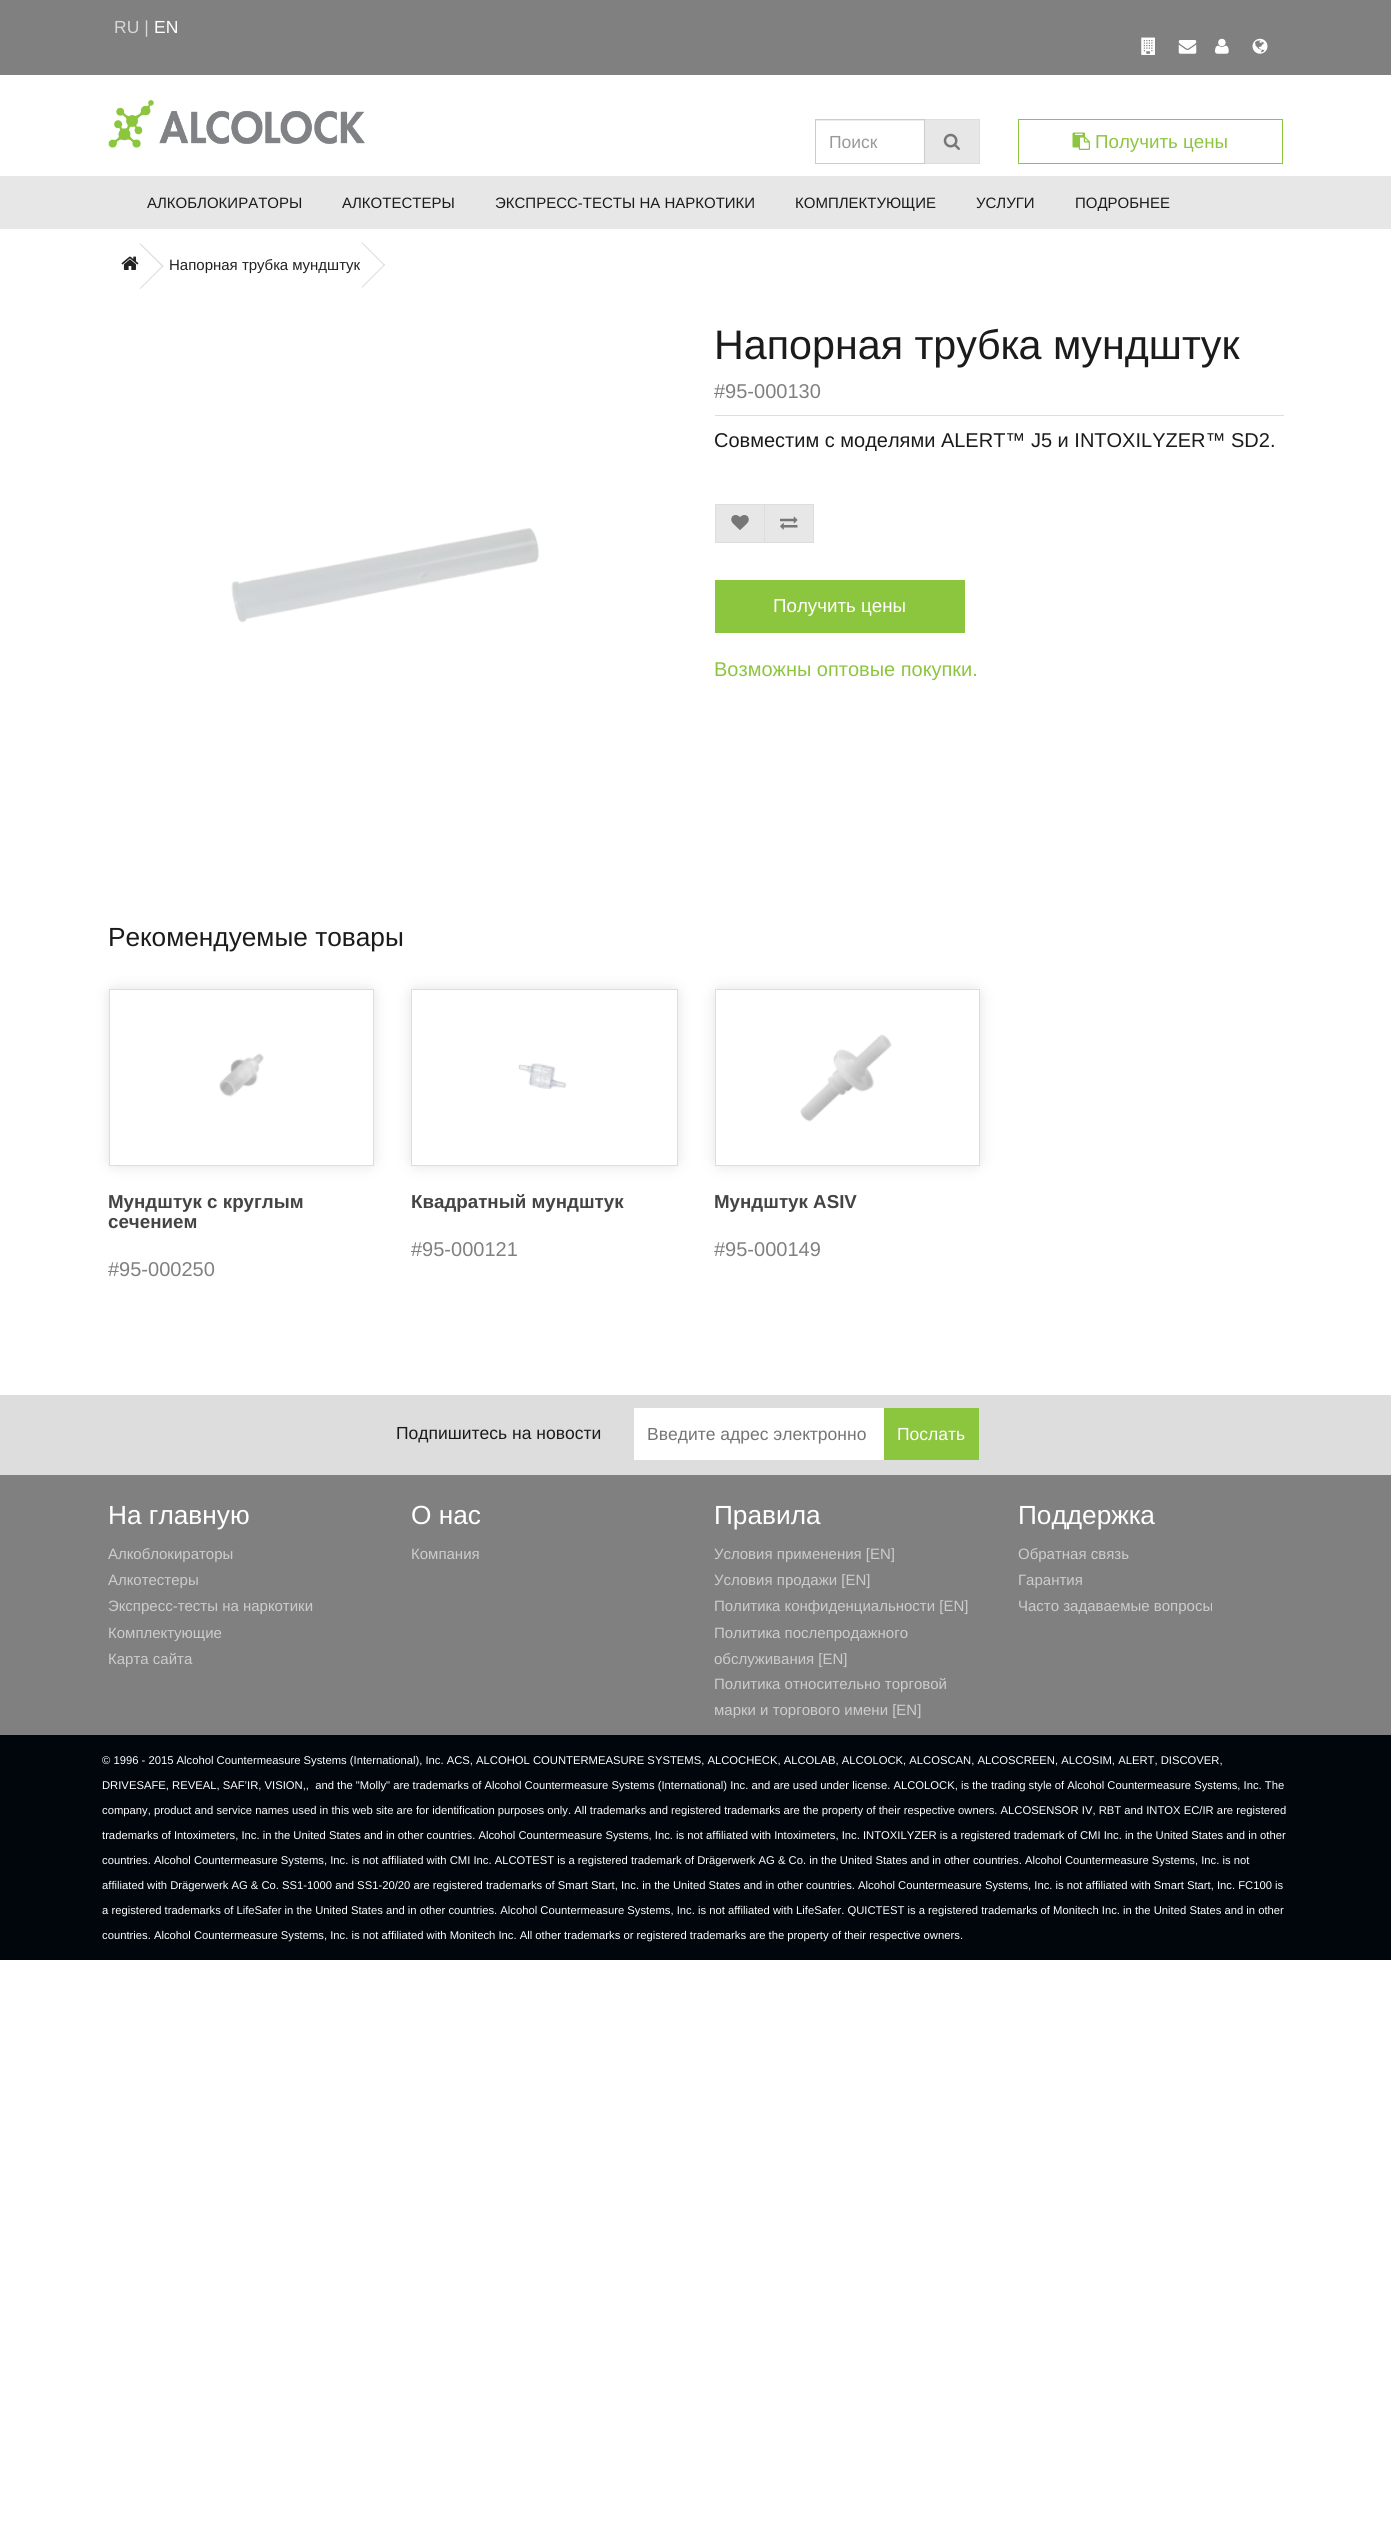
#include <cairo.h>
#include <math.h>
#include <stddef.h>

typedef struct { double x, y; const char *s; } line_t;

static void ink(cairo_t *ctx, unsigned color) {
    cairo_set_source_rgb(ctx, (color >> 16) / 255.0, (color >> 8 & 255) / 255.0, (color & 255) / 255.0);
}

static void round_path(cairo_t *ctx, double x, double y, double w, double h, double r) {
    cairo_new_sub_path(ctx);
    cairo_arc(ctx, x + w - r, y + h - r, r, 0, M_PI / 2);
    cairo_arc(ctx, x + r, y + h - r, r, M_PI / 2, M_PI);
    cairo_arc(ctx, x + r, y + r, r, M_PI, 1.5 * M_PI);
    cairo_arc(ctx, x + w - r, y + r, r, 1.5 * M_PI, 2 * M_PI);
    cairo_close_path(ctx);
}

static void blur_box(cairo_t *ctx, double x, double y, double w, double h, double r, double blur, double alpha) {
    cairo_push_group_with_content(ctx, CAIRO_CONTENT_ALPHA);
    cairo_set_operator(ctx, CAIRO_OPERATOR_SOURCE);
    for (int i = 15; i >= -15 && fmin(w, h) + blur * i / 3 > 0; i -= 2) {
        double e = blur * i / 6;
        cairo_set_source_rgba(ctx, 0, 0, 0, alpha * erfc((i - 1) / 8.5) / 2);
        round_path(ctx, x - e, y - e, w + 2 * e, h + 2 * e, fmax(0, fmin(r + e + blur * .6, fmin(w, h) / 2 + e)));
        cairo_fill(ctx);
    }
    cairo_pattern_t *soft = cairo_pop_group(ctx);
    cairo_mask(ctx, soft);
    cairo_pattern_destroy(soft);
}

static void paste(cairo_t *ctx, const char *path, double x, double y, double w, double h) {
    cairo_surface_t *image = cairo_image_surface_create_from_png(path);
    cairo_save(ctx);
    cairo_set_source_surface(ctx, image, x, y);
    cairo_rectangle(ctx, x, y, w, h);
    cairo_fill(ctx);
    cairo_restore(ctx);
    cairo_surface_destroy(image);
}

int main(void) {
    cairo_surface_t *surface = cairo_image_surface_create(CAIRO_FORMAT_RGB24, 1391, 2548);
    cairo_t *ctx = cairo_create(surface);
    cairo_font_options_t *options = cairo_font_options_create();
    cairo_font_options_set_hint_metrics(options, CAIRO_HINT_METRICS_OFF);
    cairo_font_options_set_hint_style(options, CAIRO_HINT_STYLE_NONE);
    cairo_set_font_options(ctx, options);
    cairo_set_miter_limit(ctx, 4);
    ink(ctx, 0xFFFFFF);
    cairo_paint(ctx);
    ink(ctx, 0x808080);
    cairo_rectangle(ctx, 0, 0, 1391, 75);
    cairo_fill(ctx);
    cairo_select_font_face(ctx, "Liberation Sans", CAIRO_FONT_SLANT_NORMAL, CAIRO_FONT_WEIGHT_NORMAL);
    cairo_set_font_size(ctx, 17.5);
    ink(ctx, 0xD6D6D6);
    cairo_move_to(ctx, 114, 33);
    cairo_show_text(ctx, "RU |");
    ink(ctx, 0xFFFFFF);
    cairo_move_to(ctx, 154, 33);
    cairo_show_text(ctx, "EN");
    paste(ctx, "media/1.png", 1141, 37, 14, 18);
    paste(ctx, "media/2.png", 1178, 40, 19, 14);
    paste(ctx, "media/3.png", 1215, 38, 14, 16);
    paste(ctx, "media/4.png", 1252, 38, 16, 16);
    paste(ctx, "media/5.png", 108, 100, 257, 48);
    ink(ctx, 0xECECEC);
    cairo_rectangle(ctx, 816, 120, 108, 1);
    cairo_fill(ctx);
    ink(ctx, 0xE7E7E7);
    cairo_rectangle(ctx, 924.5, 119.5, 55, 44);
    cairo_fill_preserve(ctx);
    ink(ctx, 0xDDDDDD);
    cairo_set_line_width(ctx, 1);
    cairo_stroke(ctx);
    cairo_rectangle(ctx, 815.5, 119.5, 109, 44);
    ink(ctx, 0xCCCCCC);
    cairo_stroke(ctx);
    ink(ctx, 0x999999);
    cairo_move_to(ctx, 829, 148);
    cairo_show_text(ctx, "Поиск");
    paste(ctx, "media/6.png", 943, 133, 17, 17);
    cairo_rectangle(ctx, 1018.5, 119.5, 264, 44);
    ink(ctx, 0x8CC63F);
    cairo_stroke(ctx);
    paste(ctx, "media/7.png", 1072, 132, 18, 18);
    cairo_set_font_size(ctx, 18.75);
    cairo_move_to(ctx, 1095, 148);
    cairo_show_text(ctx, "Получить цены");
    ink(ctx, 0xE7E7E7);
    cairo_rectangle(ctx, 0, 176, 1391, 53);
    cairo_fill(ctx);
    cairo_set_font_size(ctx, 15);
    ink(ctx, 0x1B1B1B);
    {
        static const line_t items[] = {
            {147, 208, "АЛКОБЛОКИРАТОРЫ"},
            {342, 208, "АЛКОТЕСТЕРЫ"},
            {495, 208, "ЭКСПРЕСС-ТЕСТЫ НА НАРКОТИКИ"},
            {795, 208, "КОМПЛЕКТУЮЩИЕ"},
            {976, 208, "УСЛУГИ"},
            {1075, 208, "ПОДРОБНЕЕ"},
        };
        for (size_t i = 0; i < sizeof items / sizeof *items; i++) {
            cairo_move_to(ctx, items[i].x, items[i].y);
            cairo_show_text(ctx, items[i].s);
        }
    }
    paste(ctx, "media/8.png", 121, 256, 18, 14);
    ink(ctx, 0xDDDDDD);
    cairo_new_path(ctx);
    cairo_move_to(ctx, 139.5, 244);
    cairo_line_to(ctx, 140.5, 243.5);
    cairo_line_to(ctx, 163.5, 266);
    cairo_line_to(ctx, 162.5, 267);
    cairo_close_path(ctx);
    cairo_fill(ctx);
    cairo_new_path(ctx);
    cairo_move_to(ctx, 139.5, 288.5);
    cairo_line_to(ctx, 162.5, 265.5);
    cairo_line_to(ctx, 163.5, 266);
    cairo_line_to(ctx, 140.5, 289);
    cairo_close_path(ctx);
    cairo_fill(ctx);
    ink(ctx, 0x222222);
    cairo_move_to(ctx, 169, 270);
    cairo_show_text(ctx, "Напорная трубка мундштук");
    ink(ctx, 0xDDDDDD);
    cairo_new_path(ctx);
    cairo_move_to(ctx, 361.5, 243);
    cairo_line_to(ctx, 362, 242);
    cairo_line_to(ctx, 385, 265);
    cairo_line_to(ctx, 384.5, 266);
    cairo_close_path(ctx);
    cairo_fill(ctx);
    cairo_new_path(ctx);
    cairo_move_to(ctx, 361.5, 287);
    cairo_line_to(ctx, 384.5, 264);
    cairo_line_to(ctx, 385, 265);
    cairo_line_to(ctx, 362, 288);
    cairo_close_path(ctx);
    cairo_fill(ctx);
    paste(ctx, "media/9.png", 231, 528, 309, 95);
    cairo_rectangle(ctx, 715, 415, 569, 1);
    cairo_fill(ctx);
    cairo_set_font_size(ctx, 41.25);
    ink(ctx, 0x1B1B1B);
    cairo_move_to(ctx, 714, 359);
    cairo_show_text(ctx, "Напорная трубка мундштук");
    cairo_set_font_size(ctx, 20);
    ink(ctx, 0x808080);
    cairo_move_to(ctx, 714, 398);
    cairo_show_text(ctx, "#95-000130");
    ink(ctx, 0x1B1B1B);
    cairo_move_to(ctx, 714, 447);
    cairo_show_text(ctx, "Совместим с моделями ALERT™ J5 и INTOXILYZER™ SD2.");
    ink(ctx, 0xE7E7E7);
    cairo_rectangle(ctx, 715.5, 504.5, 49, 38);
    cairo_fill_preserve(ctx);
    ink(ctx, 0xDDDDDD);
    cairo_stroke(ctx);
    paste(ctx, "media/10.png", 731, 515, 18, 15);
    ink(ctx, 0xE7E7E7);
    cairo_rectangle(ctx, 764.5, 504.5, 49, 38);
    cairo_fill_preserve(ctx);
    ink(ctx, 0xDDDDDD);
    cairo_stroke(ctx);
    paste(ctx, "media/11.png", 780, 516, 18, 14);
    ink(ctx, 0x8CC63F);
    cairo_rectangle(ctx, 715, 580, 250, 53);
    cairo_fill(ctx);
    cairo_set_font_size(ctx, 18.75);
    ink(ctx, 0xFFFFFF);
    cairo_move_to(ctx, 773, 612);
    cairo_show_text(ctx, "Получить цены");
    cairo_set_font_size(ctx, 20);
    ink(ctx, 0x8CC63F);
    cairo_move_to(ctx, 714, 676);
    cairo_show_text(ctx, "Возможны оптовые покупки.");
    cairo_set_font_size(ctx, 26.25);
    ink(ctx, 0x1B1B1B);
    cairo_move_to(ctx, 108, 946);
    cairo_show_text(ctx, "Рекомендуемые товары");
    ink(ctx, 0x000000);
    blur_box(ctx, 114, 994, 255, 167, 0, 9, 0.2);
    ink(ctx, 0xFFFFFF);
    cairo_rectangle(ctx, 109.5, 989.5, 264, 176);
    cairo_fill_preserve(ctx);
    ink(ctx, 0xDDDDDD);
    cairo_stroke(ctx);
    paste(ctx, "media/12.png", 219, 1053, 45, 44);
    cairo_select_font_face(ctx, "Liberation Sans", CAIRO_FONT_SLANT_NORMAL, CAIRO_FONT_WEIGHT_BOLD);
    cairo_set_font_size(ctx, 18.75);
    ink(ctx, 0x444444);
    cairo_move_to(ctx, 108, 1208);
    cairo_show_text(ctx, "Мундштук с круглым");
    cairo_move_to(ctx, 108, 1228);
    cairo_show_text(ctx, "сечением");
    cairo_select_font_face(ctx, "Liberation Sans", CAIRO_FONT_SLANT_NORMAL, CAIRO_FONT_WEIGHT_NORMAL);
    cairo_set_font_size(ctx, 20);
    ink(ctx, 0x808080);
    cairo_move_to(ctx, 108, 1276);
    cairo_show_text(ctx, "#95-000250");
    ink(ctx, 0x000000);
    blur_box(ctx, 416, 994, 257, 167, 0, 9, 0.2);
    ink(ctx, 0xFFFFFF);
    cairo_rectangle(ctx, 411.5, 989.5, 266, 176);
    cairo_fill_preserve(ctx);
    ink(ctx, 0xDDDDDD);
    cairo_stroke(ctx);
    paste(ctx, "media/13.png", 518, 1063, 49, 26);
    cairo_select_font_face(ctx, "Liberation Sans", CAIRO_FONT_SLANT_NORMAL, CAIRO_FONT_WEIGHT_BOLD);
    cairo_set_font_size(ctx, 18.75);
    ink(ctx, 0x444444);
    cairo_move_to(ctx, 411, 1208);
    cairo_show_text(ctx, "Квадратный мундштук");
    cairo_select_font_face(ctx, "Liberation Sans", CAIRO_FONT_SLANT_NORMAL, CAIRO_FONT_WEIGHT_NORMAL);
    cairo_set_font_size(ctx, 20);
    ink(ctx, 0x808080);
    cairo_move_to(ctx, 411, 1256);
    cairo_show_text(ctx, "#95-000121");
    cairo_save(ctx);
    cairo_set_fill_rule(ctx, CAIRO_FILL_RULE_EVEN_ODD);
    cairo_new_path(ctx);
    cairo_move_to(ctx, 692, 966);
    cairo_line_to(ctx, 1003, 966);
    cairo_line_to(ctx, 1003, 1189);
    cairo_line_to(ctx, 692, 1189);
    cairo_close_path(ctx);
    cairo_move_to(ctx, 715, 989);
    cairo_line_to(ctx, 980, 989);
    cairo_line_to(ctx, 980, 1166);
    cairo_line_to(ctx, 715, 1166);
    cairo_close_path(ctx);
    cairo_clip(ctx);
    ink(ctx, 0x000000);
    blur_box(ctx, 720, 994, 255, 167, 0, 9, 0.2);
    cairo_restore(ctx);
    cairo_rectangle(ctx, 715.5, 989.5, 264, 176);
    ink(ctx, 0xDDDDDD);
    cairo_stroke(ctx);
    paste(ctx, "media/14.png", 800, 1034, 92, 88);
    cairo_select_font_face(ctx, "Liberation Sans", CAIRO_FONT_SLANT_NORMAL, CAIRO_FONT_WEIGHT_BOLD);
    cairo_set_font_size(ctx, 18.75);
    ink(ctx, 0x444444);
    cairo_move_to(ctx, 714, 1208);
    cairo_show_text(ctx, "Мундштук ASIV");
    cairo_select_font_face(ctx, "Liberation Sans", CAIRO_FONT_SLANT_NORMAL, CAIRO_FONT_WEIGHT_NORMAL);
    cairo_set_font_size(ctx, 20);
    ink(ctx, 0x808080);
    cairo_move_to(ctx, 714, 1256);
    cairo_show_text(ctx, "#95-000149");
    ink(ctx, 0xDDDDDD);
    cairo_rectangle(ctx, 0, 1395, 1391, 80);
    cairo_fill(ctx);
    cairo_set_font_size(ctx, 17.5);
    ink(ctx, 0x1B1B1B);
    cairo_move_to(ctx, 396, 1439);
    cairo_show_text(ctx, "Подпишитесь на новости");
    ink(ctx, 0xFFFFFF);
    cairo_rectangle(ctx, 634, 1408, 250, 52);
    cairo_fill(ctx);
    ink(ctx, 0x757575);
    cairo_move_to(ctx, 647, 1440);
    cairo_show_text(ctx, "Введите адрес электронно");
    ink(ctx, 0x8CC63F);
    cairo_rectangle(ctx, 884, 1408, 95, 52);
    cairo_fill(ctx);
    ink(ctx, 0xFFFFFF);
    cairo_move_to(ctx, 897, 1440);
    cairo_show_text(ctx, "Послать");
    ink(ctx, 0x808080);
    cairo_rectangle(ctx, 0, 1475, 1391, 260);
    cairo_fill(ctx);
    cairo_set_font_size(ctx, 26.25);
    ink(ctx, 0xFFFFFF);
    cairo_move_to(ctx, 108, 1524);
    cairo_show_text(ctx, "На главную");
    cairo_set_font_size(ctx, 15);
    ink(ctx, 0xCCCCCC);
    {
        static const line_t items[] = {
            {108, 1559, "Алкоблокираторы"},
            {108, 1585, "Алкотестеры"},
            {108, 1611, "Экспресс-тесты на наркотики"},
            {108, 1638, "Комплектующие"},
            {108, 1664, "Карта сайта"},
        };
        for (size_t i = 0; i < sizeof items / sizeof *items; i++) {
            cairo_move_to(ctx, items[i].x, items[i].y);
            cairo_show_text(ctx, items[i].s);
        }
    }
    cairo_set_font_size(ctx, 26.25);
    ink(ctx, 0xFFFFFF);
    cairo_move_to(ctx, 411, 1524);
    cairo_show_text(ctx, "О нас");
    cairo_set_font_size(ctx, 15);
    ink(ctx, 0xCCCCCC);
    cairo_move_to(ctx, 411, 1559);
    cairo_show_text(ctx, "Компания");
    cairo_set_font_size(ctx, 26.25);
    ink(ctx, 0xFFFFFF);
    cairo_move_to(ctx, 714, 1524);
    cairo_show_text(ctx, "Правила");
    cairo_set_font_size(ctx, 15);
    ink(ctx, 0xCCCCCC);
    {
        static const line_t items[] = {
            {714, 1559, "Условия применения [EN]"},
            {714, 1585, "Условия продажи [EN]"},
            {714, 1611, "Политика конфиденциальности [EN]"},
            {714, 1638, "Политика послепродажного"},
            {714, 1664, "обслуживания [EN]"},
            {714, 1689, "Политика относительно торговой"},
            {714, 1715, "марки и торгового имени [EN]"},
        };
        for (size_t i = 0; i < sizeof items / sizeof *items; i++) {
            cairo_move_to(ctx, items[i].x, items[i].y);
            cairo_show_text(ctx, items[i].s);
        }
    }
    cairo_set_font_size(ctx, 26.25);
    ink(ctx, 0xFFFFFF);
    cairo_move_to(ctx, 1018, 1524);
    cairo_show_text(ctx, "Поддержка");
    cairo_set_font_size(ctx, 15);
    ink(ctx, 0xCCCCCC);
    {
        static const line_t items[] = {
            {1018, 1559, "Обратная связь"},
            {1018, 1585, "Гарантия"},
            {1018, 1611, "Часто задаваемые вопросы"},
        };
        for (size_t i = 0; i < sizeof items / sizeof *items; i++) {
            cairo_move_to(ctx, items[i].x, items[i].y);
            cairo_show_text(ctx, items[i].s);
        }
    }
    ink(ctx, 0x00060C);
    cairo_rectangle(ctx, 0, 1735, 1391, 225);
    cairo_fill(ctx);
    cairo_set_font_size(ctx, 11.25);
    ink(ctx, 0xFFFFFF);
    {
        static const line_t items[] = {
            {102, 1764, "© 1996 - 2015 Alcohol Countermeasure Systems (International), Inc. ACS, ALCOHOL COUNTERMEASURE SYSTEMS, ALCOCHECK, ALCOLAB, ALCOLOCK, ALCOSCAN, ALCOSCREEN, ALCOSIM, ALERT, DISCOVER,"},
            {102, 1789, "DRIVESAFE, REVEAL, SAF’IR, VISION,,  and the \"Molly\" are trademarks of Alcohol Countermeasure Systems (International) Inc. and are used under license. ALCOLOCK, is the trading style of Alcohol Countermeasure Systems, Inc. The"},
            {102, 1814, "company, product and service names used in this web site are for identification purposes only. All trademarks and registered trademarks are the property of their respective owners. ALCOSENSOR IV, RBT and INTOX EC/IR are registered"},
            {102, 1839, "trademarks of Intoximeters, Inc. in the United States and in other countries. Alcohol Countermeasure Systems, Inc. is not affiliated with Intoximeters, Inc. INTOXILYZER is a registered trademark of CMI Inc. in the United States and in other"},
            {102, 1864, "countries. Alcohol Countermeasure Systems, Inc. is not affiliated with CMI Inc. ALCOTEST is a registered trademark of Drägerwerk AG & Co. in the United States and in other countries. Alcohol Countermeasure Systems, Inc. is not"},
            {102, 1889, "affiliated with Drägerwerk AG & Co. SS1-1000 and SS1-20/20 are registered trademarks of Smart Start, Inc. in the United States and in other countries. Alcohol Countermeasure Systems, Inc. is not affiliated with Smart Start, Inc. FC100 is"},
            {102, 1914, "a registered trademarks of LifeSafer in the United States and in other countries. Alcohol Countermeasure Systems, Inc. is not affiliated with LifeSafer. QUICTEST is a registered trademarks of Monitech Inc. in the United States and in other"},
            {102, 1939, "countries. Alcohol Countermeasure Systems, Inc. is not affiliated with Monitech Inc. All other trademarks or registered trademarks are the property of their respective owners."},
        };
        for (size_t i = 0; i < sizeof items / sizeof *items; i++) {
            cairo_move_to(ctx, items[i].x, items[i].y);
            cairo_show_text(ctx, items[i].s);
        }
    }
    cairo_surface_write_to_png(surface, "image.png");
    cairo_font_options_destroy(options);
    cairo_destroy(ctx);
    cairo_surface_destroy(surface);
    return 0;
}
